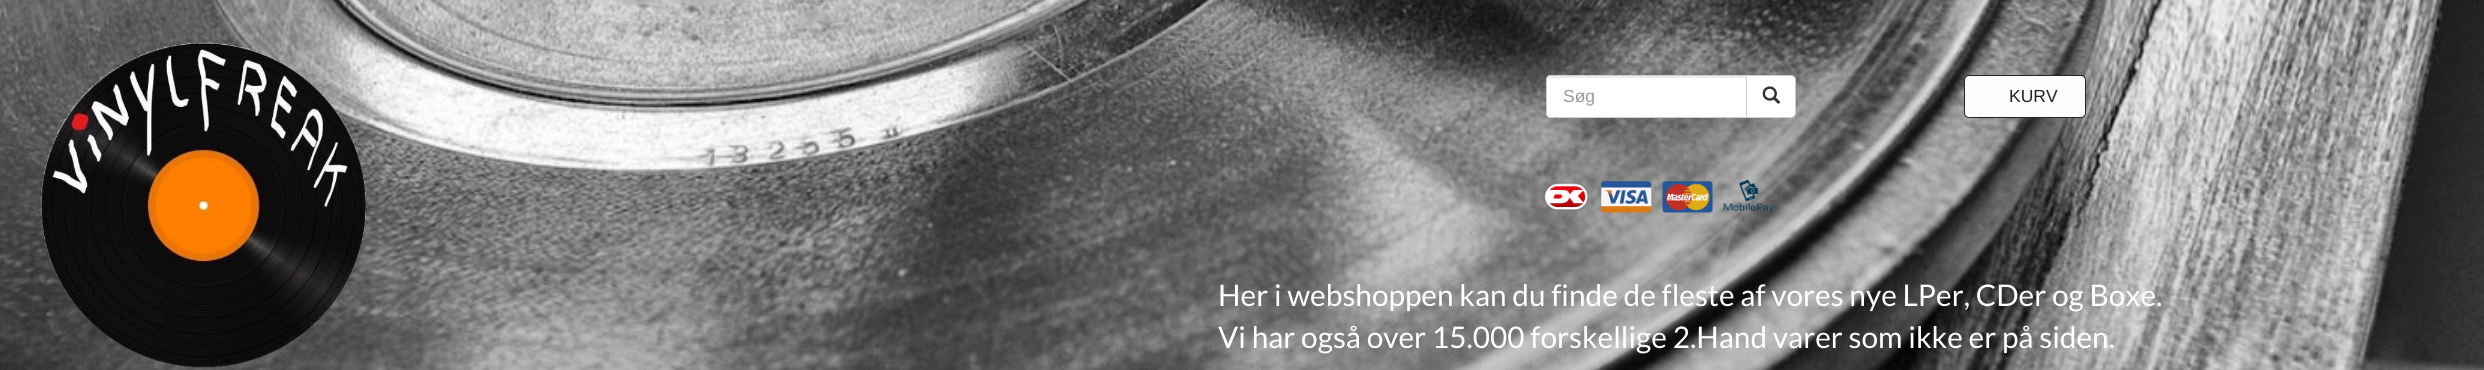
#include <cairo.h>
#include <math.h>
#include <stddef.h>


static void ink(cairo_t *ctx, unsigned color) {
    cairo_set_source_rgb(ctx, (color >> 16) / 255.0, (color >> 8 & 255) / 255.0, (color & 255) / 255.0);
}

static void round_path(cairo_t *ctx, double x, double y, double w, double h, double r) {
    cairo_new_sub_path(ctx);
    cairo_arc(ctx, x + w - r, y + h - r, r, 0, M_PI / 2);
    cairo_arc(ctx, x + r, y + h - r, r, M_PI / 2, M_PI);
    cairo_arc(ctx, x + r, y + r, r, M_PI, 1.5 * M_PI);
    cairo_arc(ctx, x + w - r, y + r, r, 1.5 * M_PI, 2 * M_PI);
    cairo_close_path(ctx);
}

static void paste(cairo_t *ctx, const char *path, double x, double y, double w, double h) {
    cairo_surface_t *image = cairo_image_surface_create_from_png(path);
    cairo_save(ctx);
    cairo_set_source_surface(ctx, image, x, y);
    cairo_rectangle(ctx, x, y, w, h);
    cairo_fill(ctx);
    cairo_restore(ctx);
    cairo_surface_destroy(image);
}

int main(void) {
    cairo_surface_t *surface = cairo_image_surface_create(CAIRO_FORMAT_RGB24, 2484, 370);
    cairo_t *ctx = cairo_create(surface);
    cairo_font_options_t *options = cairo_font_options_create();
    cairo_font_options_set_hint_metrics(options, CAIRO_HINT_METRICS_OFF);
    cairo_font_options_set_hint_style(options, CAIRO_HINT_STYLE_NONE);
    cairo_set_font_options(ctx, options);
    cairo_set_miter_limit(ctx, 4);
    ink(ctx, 0xFFFFFF);
    cairo_paint(ctx);
    paste(ctx, "media/1.png", 0, 0, 2484, 370);
    paste(ctx, "media/2.png", 40, 42, 327, 326);
    ink(ctx, 0xFFFFFF);
    cairo_new_path(ctx);
    cairo_move_to(ctx, 1551, 75);
    cairo_line_to(ctx, 1748, 75);
    cairo_line_to(ctx, 1748, 118);
    cairo_line_to(ctx, 1551, 118);
    cairo_curve_to(ctx, 1548, 118, 1546, 116, 1546, 113);
    cairo_line_to(ctx, 1546, 80);
    cairo_curve_to(ctx, 1546, 77, 1548, 75, 1551, 75);
    cairo_close_path(ctx);
    cairo_fill(ctx);
    ink(ctx, 0xECECEC);
    cairo_new_path(ctx);
    cairo_move_to(ctx, 1551, 78);
    cairo_line_to(ctx, 1746, 78);
    cairo_line_to(ctx, 1746, 76);
    cairo_line_to(ctx, 1551, 76);
    cairo_curve_to(ctx, 1549, 77, 1548, 79, 1548, 81);
    cairo_curve_to(ctx, 1548, 79, 1549, 78, 1551, 78);
    cairo_close_path(ctx);
    cairo_fill(ctx);
    cairo_new_path(ctx);
    cairo_move_to(ctx, 1551, 75.5);
    cairo_line_to(ctx, 1747.5, 75.5);
    cairo_line_to(ctx, 1747.5, 117.5);
    cairo_line_to(ctx, 1551, 117.5);
    cairo_curve_to(ctx, 1548.5, 117.5, 1546.5, 115.5, 1546.5, 113);
    cairo_line_to(ctx, 1546.5, 80);
    cairo_curve_to(ctx, 1546.5, 77.5, 1548.5, 75.5, 1551, 75.5);
    cairo_close_path(ctx);
    ink(ctx, 0xCCCCCC);
    cairo_set_line_width(ctx, 1);
    cairo_stroke(ctx);
    cairo_select_font_face(ctx, "Liberation Sans", CAIRO_FONT_SLANT_NORMAL, CAIRO_FONT_WEIGHT_NORMAL);
    cairo_set_font_size(ctx, 17.5);
    ink(ctx, 0x999999);
    cairo_move_to(ctx, 1563, 102);
    cairo_show_text(ctx, "Søg");
    ink(ctx, 0xFFFFFF);
    cairo_new_path(ctx);
    cairo_move_to(ctx, 1746.5, 75.5);
    cairo_line_to(ctx, 1791, 75.5);
    cairo_curve_to(ctx, 1793.5, 75.5, 1795.5, 77.5, 1795.5, 80);
    cairo_line_to(ctx, 1795.5, 113);
    cairo_curve_to(ctx, 1795.5, 115.5, 1793.5, 117.5, 1791, 117.5);
    cairo_line_to(ctx, 1746.5, 117.5);
    cairo_close_path(ctx);
    cairo_fill_preserve(ctx);
    ink(ctx, 0xCCCCCC);
    cairo_stroke(ctx);
    paste(ctx, "media/3.png", 1762, 86, 19, 18);
    ink(ctx, 0xFCFCFC);
    round_path(ctx, 1964.5, 75.5, 121, 42, 4.5);
    cairo_fill_preserve(ctx);
    ink(ctx, 0x242424);
    cairo_stroke(ctx);
    cairo_move_to(ctx, 2009, 102);
    cairo_show_text(ctx, "KURV");
    paste(ctx, "media/4.png", 1543, 182, 46, 29);
    paste(ctx, "media/5.png", 1601, 181, 51, 32);
    paste(ctx, "media/6.png", 1662, 181, 51, 32);
    paste(ctx, "media/7.png", 1723, 180, 51, 33);
    cairo_select_font_face(ctx, "Lato", CAIRO_FONT_SLANT_NORMAL, CAIRO_FONT_WEIGHT_NORMAL);
    cairo_set_font_size(ctx, 29.8);
    ink(ctx, 0xFFFFFF);
    cairo_move_to(ctx, 1218, 306);
    cairo_show_text(ctx, "Her i webshoppen kan du finde de fleste af vores nye LPer, CDer og Boxe.");
    cairo_move_to(ctx, 1218, 348);
    cairo_show_text(ctx, "Vi har også over 15.000 forskellige 2.Hand varer som ikke er på siden.");
    cairo_surface_write_to_png(surface, "image.png");
    cairo_font_options_destroy(options);
    cairo_destroy(ctx);
    cairo_surface_destroy(surface);
    return 0;
}
